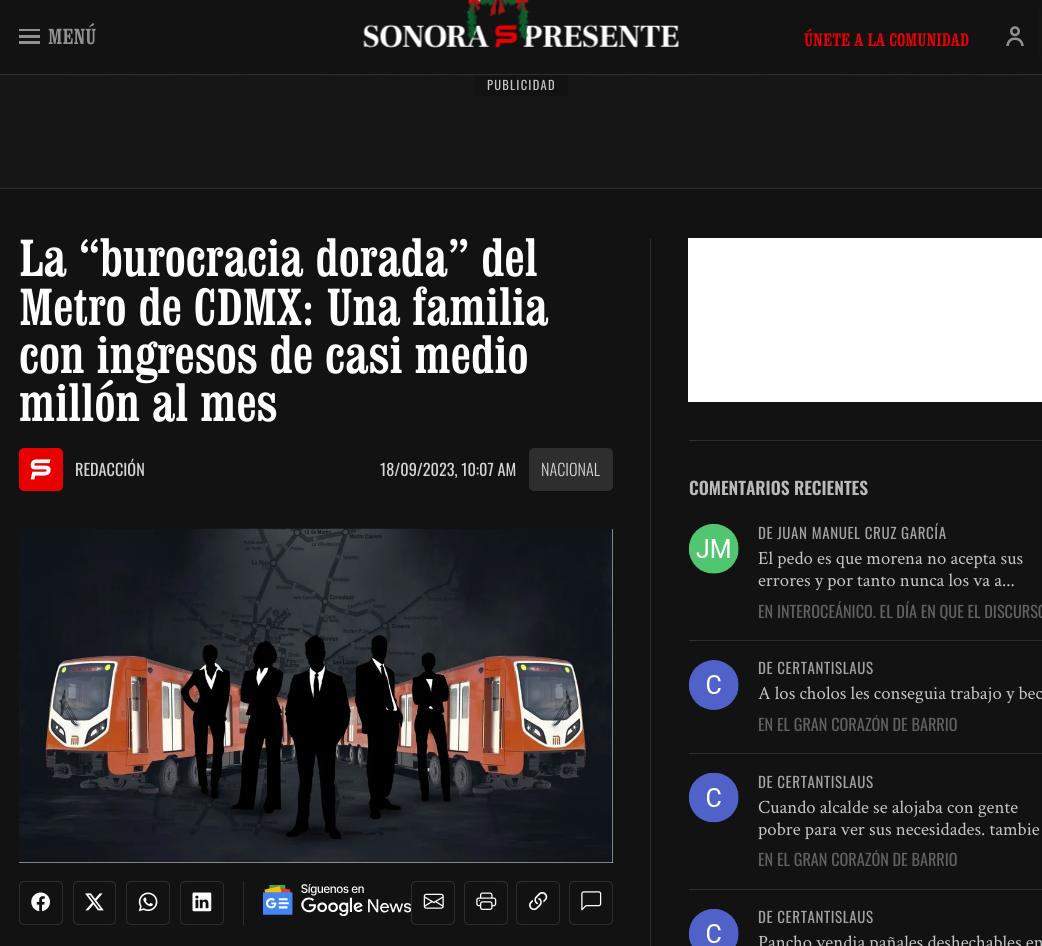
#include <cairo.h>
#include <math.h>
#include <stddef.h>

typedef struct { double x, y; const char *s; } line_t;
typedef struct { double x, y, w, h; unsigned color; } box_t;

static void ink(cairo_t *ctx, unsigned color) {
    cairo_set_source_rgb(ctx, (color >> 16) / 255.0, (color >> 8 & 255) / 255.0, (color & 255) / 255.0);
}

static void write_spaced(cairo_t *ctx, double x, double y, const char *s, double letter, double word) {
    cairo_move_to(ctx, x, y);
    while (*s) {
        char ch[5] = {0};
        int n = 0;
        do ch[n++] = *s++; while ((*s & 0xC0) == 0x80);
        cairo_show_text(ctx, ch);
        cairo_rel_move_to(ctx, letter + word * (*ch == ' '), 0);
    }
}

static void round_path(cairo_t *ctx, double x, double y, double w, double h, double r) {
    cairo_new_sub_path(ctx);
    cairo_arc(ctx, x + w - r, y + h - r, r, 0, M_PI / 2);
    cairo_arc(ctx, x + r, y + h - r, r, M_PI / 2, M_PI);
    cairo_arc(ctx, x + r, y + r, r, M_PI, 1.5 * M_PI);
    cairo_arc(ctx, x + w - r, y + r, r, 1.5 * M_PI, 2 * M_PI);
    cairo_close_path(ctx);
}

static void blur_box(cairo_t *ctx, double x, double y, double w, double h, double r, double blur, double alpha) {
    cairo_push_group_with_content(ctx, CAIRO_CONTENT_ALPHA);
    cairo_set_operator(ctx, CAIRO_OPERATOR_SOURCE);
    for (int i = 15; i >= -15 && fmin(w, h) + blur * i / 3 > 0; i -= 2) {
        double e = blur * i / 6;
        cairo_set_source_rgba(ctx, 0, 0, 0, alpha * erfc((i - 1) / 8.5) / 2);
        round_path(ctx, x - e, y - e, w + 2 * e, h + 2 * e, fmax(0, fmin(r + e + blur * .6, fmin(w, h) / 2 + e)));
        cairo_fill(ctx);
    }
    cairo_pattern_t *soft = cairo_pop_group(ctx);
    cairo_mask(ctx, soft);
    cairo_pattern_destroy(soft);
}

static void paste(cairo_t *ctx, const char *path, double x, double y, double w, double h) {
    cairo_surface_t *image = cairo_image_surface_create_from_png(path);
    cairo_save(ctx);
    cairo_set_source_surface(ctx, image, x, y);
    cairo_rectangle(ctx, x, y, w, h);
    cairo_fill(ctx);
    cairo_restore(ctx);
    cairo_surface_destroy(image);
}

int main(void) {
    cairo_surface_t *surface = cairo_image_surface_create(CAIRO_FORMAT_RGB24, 1042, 946);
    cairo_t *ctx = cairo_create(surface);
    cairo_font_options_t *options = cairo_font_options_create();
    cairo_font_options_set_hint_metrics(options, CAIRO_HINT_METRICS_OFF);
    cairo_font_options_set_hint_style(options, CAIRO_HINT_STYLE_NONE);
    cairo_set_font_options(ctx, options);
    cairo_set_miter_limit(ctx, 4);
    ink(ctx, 0x121212);
    cairo_paint(ctx);
    ink(ctx, 0x161616);
    cairo_rectangle(ctx, 0, 75, 1042, 113);
    cairo_fill(ctx);
    cairo_save(ctx);
    cairo_rectangle(ctx, 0, 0, 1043, 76);
    cairo_clip(ctx);
    ink(ctx, 0x640F0D);
    blur_box(ctx, 11, 9, 23, 42, 11.5, 15, 1);
    ink(ctx, 0xAD8950);
    blur_box(ctx, 76, 9, 23, 42, 11.5, 15, 1);
    ink(ctx, 0x8B8F42);
    blur_box(ctx, 141, 9, 23, 42, 11.5, 15, 1);
    ink(ctx, 0xAD8950);
    blur_box(ctx, 206, 9, 23, 42, 11.5, 15, 1);
    ink(ctx, 0x640F0D);
    blur_box(ctx, 271, 9, 23, 42, 11.5, 15, 1);
    ink(ctx, 0xAD8950);
    blur_box(ctx, 336, 9, 23, 42, 11.5, 15, 1);
    ink(ctx, 0x8B8F42);
    blur_box(ctx, 401, 9, 23, 42, 11.5, 15, 1);
    cairo_restore(ctx);
    ink(ctx, 0x121212);
    cairo_rectangle(ctx, 474, 75, 94, 21);
    cairo_fill(ctx);
    cairo_save(ctx);
    cairo_rectangle(ctx, 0, 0, 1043, 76);
    cairo_clip(ctx);
    ink(ctx, 0xAD8950);
    blur_box(ctx, 466, 9, 23, 42, 11.5, 15, 1);
    ink(ctx, 0x640F0D);
    blur_box(ctx, 531, 9, 23, 42, 11.5, 15, 1);
    ink(ctx, 0xAD8950);
    blur_box(ctx, 596, 9, 23, 42, 11.5, 15, 1);
    ink(ctx, 0x8B8F42);
    blur_box(ctx, 661, 9, 23, 42, 11.5, 15, 1);
    ink(ctx, 0xAD8950);
    blur_box(ctx, 726, 9, 23, 42, 11.5, 15, 1);
    ink(ctx, 0x640F0D);
    blur_box(ctx, 791, 9, 23, 42, 11.5, 15, 1);
    ink(ctx, 0xAD8950);
    blur_box(ctx, 856, 9, 23, 42, 11.5, 15, 1);
    ink(ctx, 0x8B8F42);
    blur_box(ctx, 921, 9, 23, 42, 11.5, 15, 1);
    ink(ctx, 0xAD8950);
    blur_box(ctx, 986, 9, 23, 42, 11.5, 15, 1);
    cairo_restore(ctx);
    {
        static const box_t items[] = {
            {0, 0, 1039, 74, 0x121212},
            {0, 74, 1042, 1, 0x2E2E2E},
            {19, 29, 21, 2, 0x909090},
            {19, 35, 21, 3, 0x909090},
            {19, 41, 21, 3, 0x909090},
        };
        for (size_t i = 0; i < sizeof items / sizeof *items; i++) {
            ink(ctx, items[i].color);
            cairo_rectangle(ctx, items[i].x, items[i].y, items[i].w, items[i].h);
            cairo_fill(ctx);
        }
    }
    cairo_select_font_face(ctx, "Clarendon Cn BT", CAIRO_FONT_SLANT_NORMAL, CAIRO_FONT_WEIGHT_NORMAL);
    cairo_set_font_size(ctx, 22.5);
    cairo_move_to(ctx, 48, 44);
    cairo_show_text(ctx, "MENÚ");
    paste(ctx, "media/1.png", 363, 24, 316, 24);
    paste(ctx, "media/2.png", 464, 0, 67, 41);
    cairo_set_font_size(ctx, 18.75);
    ink(ctx, 0xE80000);
    cairo_move_to(ctx, 804, 46);
    cairo_show_text(ctx, "ÚNETE A LA COMUNIDAD");
    paste(ctx, "media/3.png", 1006, 26, 18, 20);
    ink(ctx, 0x2E2E2E);
    cairo_rectangle(ctx, 0, 188, 1042, 1);
    cairo_fill(ctx);
    cairo_select_font_face(ctx, "Oswald", CAIRO_FONT_SLANT_NORMAL, CAIRO_FONT_WEIGHT_NORMAL);
    cairo_set_font_size(ctx, 12.5);
    ink(ctx, 0xC5C5C5);
    write_spaced(ctx, 487, 90, "PUBLICIDAD", 1.25, 0);
    cairo_select_font_face(ctx, "Clarendon Cn BT", CAIRO_FONT_SLANT_NORMAL, CAIRO_FONT_WEIGHT_NORMAL);
    cairo_set_font_size(ctx, 53.75);
    ink(ctx, 0xFFFFFF);
    {
        static const line_t items[] = {
            {19, 276, "La “burocracia dorada” del"},
            {19, 325, "Metro de CDMX: Una familia"},
            {19, 373, "con ingresos de casi medio"},
            {19, 421, "millón al mes"},
        };
        for (size_t i = 0; i < sizeof items / sizeof *items; i++) {
            cairo_move_to(ctx, items[i].x, items[i].y);
            cairo_show_text(ctx, items[i].s);
        }
    }
    ink(ctx, 0xE80000);
    round_path(ctx, 19, 448, 44, 43, 5);
    cairo_fill(ctx);
    paste(ctx, "media/4.png", 30, 459, 21, 21);
    cairo_select_font_face(ctx, "Oswald", CAIRO_FONT_SLANT_NORMAL, CAIRO_FONT_WEIGHT_NORMAL);
    cairo_set_font_size(ctx, 16.25);
    ink(ctx, 0xD5D5D5);
    cairo_move_to(ctx, 75, 476);
    cairo_show_text(ctx, "REDACCIÓN");
    cairo_move_to(ctx, 380, 476);
    cairo_show_text(ctx, "18/09/2023, 10:07 AM");
    ink(ctx, 0x2E2E2E);
    round_path(ctx, 529, 448, 84, 43, 5);
    cairo_fill(ctx);
    cairo_select_font_face(ctx, "Oswald Light", CAIRO_FONT_SLANT_NORMAL, CAIRO_FONT_WEIGHT_NORMAL);
    ink(ctx, 0xD5D5D5);
    cairo_move_to(ctx, 541, 476);
    cairo_show_text(ctx, "NACIONAL");
    ink(ctx, 0xF1F1F1);
    cairo_rectangle(ctx, 19, 529, 594, 334);
    cairo_fill(ctx);
    paste(ctx, "media/5.png", 19, 528, 594, 335);
    round_path(ctx, 19.5, 881.5, 43, 43, 4.5);
    ink(ctx, 0x2E2E2E);
    cairo_set_line_width(ctx, 1);
    cairo_stroke(ctx);
    paste(ctx, "media/6.png", 31, 892, 19, 20);
    round_path(ctx, 73.5, 881.5, 42, 43, 4.5);
    cairo_stroke(ctx);
    paste(ctx, "media/7.png", 85, 893, 19, 18);
    round_path(ctx, 126.5, 881.5, 43, 43, 4.5);
    cairo_stroke(ctx);
    paste(ctx, "media/8.png", 138, 892, 20, 20);
    round_path(ctx, 180.5, 881.5, 43, 43, 4.5);
    cairo_stroke(ctx);
    paste(ctx, "media/9.png", 192, 892, 20, 20);
    cairo_rectangle(ctx, 243, 881, 1, 44);
    cairo_fill(ctx);
    paste(ctx, "media/10.png", 263, 884, 148, 32);
    round_path(ctx, 411.5, 881.5, 43, 43, 4.5);
    cairo_stroke(ctx);
    paste(ctx, "media/11.png", 423, 893, 21, 16);
    round_path(ctx, 464.5, 881.5, 43, 43, 4.5);
    cairo_stroke(ctx);
    paste(ctx, "media/12.png", 476, 892, 21, 18);
    round_path(ctx, 516.5, 881.5, 43, 43, 4.5);
    cairo_stroke(ctx);
    paste(ctx, "media/13.png", 529, 892, 19, 19);
    round_path(ctx, 569.5, 881.5, 43, 43, 4.5);
    cairo_stroke(ctx);
    paste(ctx, "media/14.png", 581, 891, 21, 20);
    {
        static const box_t items[] = {
            {650, 239, 1, 707, 0x2E2E2E},
            {688, 238, 354, 164, 0xFFFFFF},
            {689, 440, 353, 1, 0x2E2E2E},
        };
        for (size_t i = 0; i < sizeof items / sizeof *items; i++) {
            ink(ctx, items[i].color);
            cairo_rectangle(ctx, items[i].x, items[i].y, items[i].w, items[i].h);
            cairo_fill(ctx);
        }
    }
    cairo_select_font_face(ctx, "Oswald SemiBold", CAIRO_FONT_SLANT_NORMAL, CAIRO_FONT_WEIGHT_NORMAL);
    cairo_set_font_size(ctx, 17.5);
    ink(ctx, 0xBABABA);
    cairo_move_to(ctx, 689, 495);
    cairo_show_text(ctx, "COMENTARIOS RECIENTES");
    ink(ctx, 0x2E2E2E);
    cairo_rectangle(ctx, 689, 640, 353, 1);
    cairo_fill(ctx);
    paste(ctx, "media/15.png", 689, 524, 50, 50);
    cairo_select_font_face(ctx, "Oswald", CAIRO_FONT_SLANT_NORMAL, CAIRO_FONT_WEIGHT_NORMAL);
    cairo_set_font_size(ctx, 15);
    ink(ctx, 0xA2A2A2);
    write_spaced(ctx, 758, 539, "DE JUAN MANUEL CRUZ GARCÍA", 0.6, 0);
    cairo_select_font_face(ctx, "Crimson Text", CAIRO_FONT_SLANT_NORMAL, CAIRO_FONT_WEIGHT_NORMAL);
    cairo_set_font_size(ctx, 18.75);
    ink(ctx, 0xC5C5C5);
    cairo_move_to(ctx, 758, 564);
    cairo_show_text(ctx, "El pedo es que morena no acepta sus");
    cairo_move_to(ctx, 758, 586);
    cairo_show_text(ctx, "errores y por tanto nunca los va a...");
    cairo_save(ctx);
    cairo_rectangle(ctx, 758, 601, 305, 20);
    cairo_clip(ctx);
    cairo_select_font_face(ctx, "Oswald", CAIRO_FONT_SLANT_NORMAL, CAIRO_FONT_WEIGHT_NORMAL);
    cairo_set_font_size(ctx, 16.25);
    ink(ctx, 0x616161);
    cairo_move_to(ctx, 758, 618);
    cairo_show_text(ctx, "EN INTEROCEÁNICO. EL DÍA EN QUE EL DISCURSO");
    cairo_restore(ctx);
    ink(ctx, 0x2E2E2E);
    cairo_rectangle(ctx, 689, 753, 353, 1);
    cairo_fill(ctx);
    paste(ctx, "media/16.png", 689, 660, 50, 50);
    cairo_select_font_face(ctx, "Oswald", CAIRO_FONT_SLANT_NORMAL, CAIRO_FONT_WEIGHT_NORMAL);
    cairo_set_font_size(ctx, 15);
    ink(ctx, 0xA2A2A2);
    write_spaced(ctx, 758, 674, "DE CERTANTISLAUS", 0.6, 0);
    cairo_select_font_face(ctx, "Crimson Text", CAIRO_FONT_SLANT_NORMAL, CAIRO_FONT_WEIGHT_NORMAL);
    cairo_set_font_size(ctx, 18.75);
    ink(ctx, 0xC5C5C5);
    cairo_move_to(ctx, 758, 699);
    cairo_show_text(ctx, "A los cholos les conseguia trabajo y bec");
    cairo_save(ctx);
    cairo_rectangle(ctx, 758, 715, 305, 19);
    cairo_clip(ctx);
    cairo_select_font_face(ctx, "Oswald", CAIRO_FONT_SLANT_NORMAL, CAIRO_FONT_WEIGHT_NORMAL);
    cairo_set_font_size(ctx, 16.25);
    ink(ctx, 0x616161);
    cairo_move_to(ctx, 758, 731);
    cairo_show_text(ctx, "EN EL GRAN CORAZÓN DE BARRIO");
    cairo_restore(ctx);
    ink(ctx, 0x2E2E2E);
    cairo_rectangle(ctx, 689, 889, 353, 1);
    cairo_fill(ctx);
    paste(ctx, "media/17.png", 689, 773, 50, 50);
    cairo_select_font_face(ctx, "Oswald", CAIRO_FONT_SLANT_NORMAL, CAIRO_FONT_WEIGHT_NORMAL);
    cairo_set_font_size(ctx, 15);
    ink(ctx, 0xA2A2A2);
    write_spaced(ctx, 758, 788, "DE CERTANTISLAUS", 0.6, 0);
    cairo_select_font_face(ctx, "Crimson Text", CAIRO_FONT_SLANT_NORMAL, CAIRO_FONT_WEIGHT_NORMAL);
    cairo_set_font_size(ctx, 18.75);
    ink(ctx, 0xC5C5C5);
    cairo_move_to(ctx, 758, 813);
    cairo_show_text(ctx, "Cuando alcalde se alojaba con gente");
    cairo_move_to(ctx, 758, 835);
    cairo_show_text(ctx, "pobre para ver sus necesidades. tambie");
    cairo_save(ctx);
    cairo_rectangle(ctx, 758, 850, 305, 20);
    cairo_clip(ctx);
    cairo_select_font_face(ctx, "Oswald", CAIRO_FONT_SLANT_NORMAL, CAIRO_FONT_WEIGHT_NORMAL);
    cairo_set_font_size(ctx, 16.25);
    ink(ctx, 0x616161);
    cairo_move_to(ctx, 758, 866);
    cairo_show_text(ctx, "EN EL GRAN CORAZÓN DE BARRIO");
    cairo_restore(ctx);
    paste(ctx, "media/18.png", 689, 909, 50, 37);
    cairo_select_font_face(ctx, "Oswald", CAIRO_FONT_SLANT_NORMAL, CAIRO_FONT_WEIGHT_NORMAL);
    cairo_set_font_size(ctx, 15);
    ink(ctx, 0xA2A2A2);
    write_spaced(ctx, 758, 923, "DE CERTANTISLAUS", 0.6, 0);
    cairo_select_font_face(ctx, "Crimson Text", CAIRO_FONT_SLANT_NORMAL, CAIRO_FONT_WEIGHT_NORMAL);
    cairo_set_font_size(ctx, 18.75);
    ink(ctx, 0xC5C5C5);
    cairo_move_to(ctx, 758, 948);
    cairo_show_text(ctx, "Pancho vendia pañales deshechables en");
    cairo_surface_write_to_png(surface, "image.png");
    cairo_font_options_destroy(options);
    cairo_destroy(ctx);
    cairo_surface_destroy(surface);
    return 0;
}
